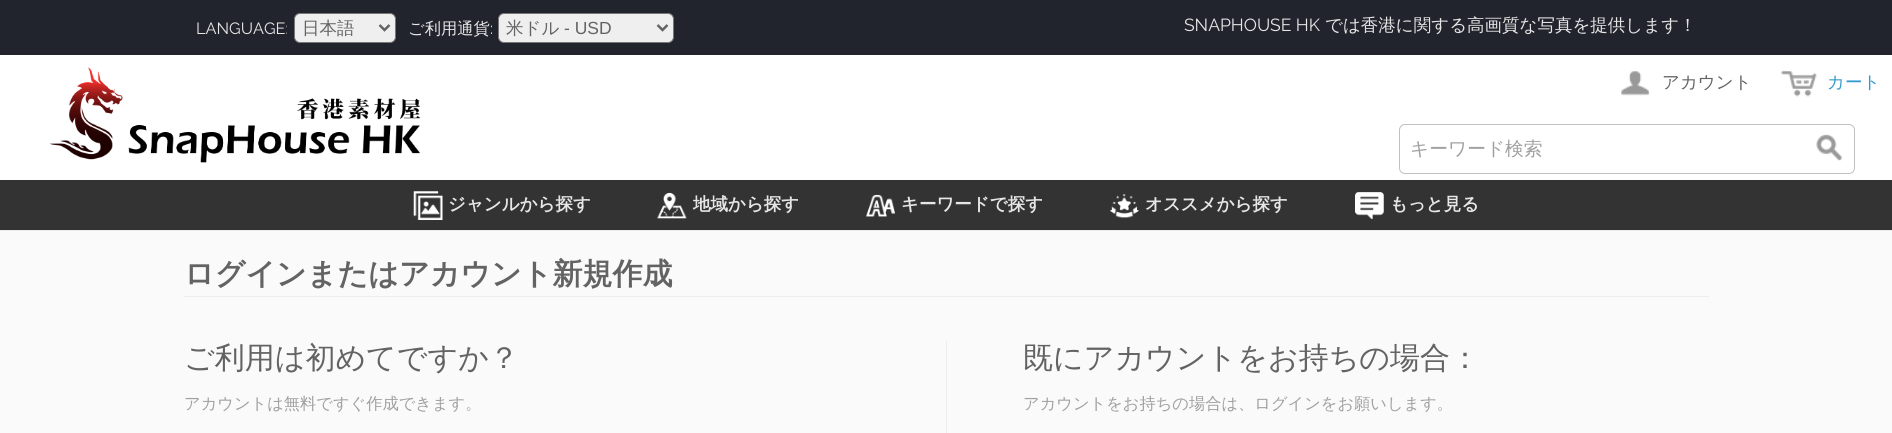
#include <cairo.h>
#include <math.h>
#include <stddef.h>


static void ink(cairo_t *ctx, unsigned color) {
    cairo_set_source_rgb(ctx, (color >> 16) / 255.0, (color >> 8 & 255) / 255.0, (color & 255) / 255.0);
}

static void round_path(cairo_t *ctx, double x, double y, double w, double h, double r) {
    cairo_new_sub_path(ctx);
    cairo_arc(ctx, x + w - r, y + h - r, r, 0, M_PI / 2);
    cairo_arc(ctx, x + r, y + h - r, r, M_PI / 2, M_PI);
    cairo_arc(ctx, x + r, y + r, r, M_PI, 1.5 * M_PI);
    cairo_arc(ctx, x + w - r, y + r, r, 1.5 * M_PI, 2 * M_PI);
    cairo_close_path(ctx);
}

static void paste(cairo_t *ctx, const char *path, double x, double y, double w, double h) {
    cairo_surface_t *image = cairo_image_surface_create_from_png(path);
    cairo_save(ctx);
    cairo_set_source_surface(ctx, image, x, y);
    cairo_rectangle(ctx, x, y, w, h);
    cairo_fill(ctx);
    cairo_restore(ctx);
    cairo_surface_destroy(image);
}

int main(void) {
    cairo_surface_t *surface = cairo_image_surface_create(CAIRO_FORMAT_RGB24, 1892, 433);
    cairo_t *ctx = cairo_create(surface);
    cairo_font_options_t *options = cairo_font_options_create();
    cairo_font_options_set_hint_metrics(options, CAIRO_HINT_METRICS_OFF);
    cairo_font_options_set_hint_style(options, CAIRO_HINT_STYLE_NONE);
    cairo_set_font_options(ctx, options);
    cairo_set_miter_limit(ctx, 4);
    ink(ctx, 0xFFFFFF);
    cairo_paint(ctx);
    ink(ctx, 0x22242D);
    cairo_rectangle(ctx, 0, 0, 1892, 55);
    cairo_fill(ctx);
    cairo_select_font_face(ctx, "Raleway", CAIRO_FONT_SLANT_NORMAL, CAIRO_FONT_WEIGHT_NORMAL);
    cairo_set_font_size(ctx, 16.25);
    ink(ctx, 0xE6E6E6);
    cairo_move_to(ctx, 196, 34);
    cairo_show_text(ctx, "LANGUAGE:");
    ink(ctx, 0xEFEFEF);
    round_path(ctx, 294.5, 13.5, 101, 29, 5.5);
    cairo_fill_preserve(ctx);
    ink(ctx, 0x767676);
    cairo_set_line_width(ctx, 1);
    cairo_stroke(ctx);
    cairo_new_path(ctx);
    cairo_move_to(ctx, 379.5, 25);
    cairo_line_to(ctx, 384.5, 30);
    cairo_line_to(ctx, 389.5, 25);
    ink(ctx, 0x636363);
    cairo_set_line_width(ctx, 2.5);
    cairo_stroke(ctx);
    cairo_select_font_face(ctx, "WenQuanYi Zen Hei Medium", CAIRO_FONT_SLANT_NORMAL, CAIRO_FONT_WEIGHT_NORMAL);
    cairo_set_font_size(ctx, 17.5);
    cairo_move_to(ctx, 302, 34);
    cairo_show_text(ctx, "日本語");
    cairo_set_font_size(ctx, 16.25);
    ink(ctx, 0xE6E6E6);
    cairo_move_to(ctx, 408, 34);
    cairo_show_text(ctx, "ご利用通貨");
    cairo_select_font_face(ctx, "Raleway", CAIRO_FONT_SLANT_NORMAL, CAIRO_FONT_WEIGHT_NORMAL);
    cairo_move_to(ctx, 490, 34);
    cairo_show_text(ctx, ":");
    ink(ctx, 0xEFEFEF);
    round_path(ctx, 498.5, 13.5, 175, 29, 5.5);
    cairo_fill_preserve(ctx);
    ink(ctx, 0x767676);
    cairo_set_line_width(ctx, 1);
    cairo_stroke(ctx);
    cairo_new_path(ctx);
    cairo_move_to(ctx, 657.5, 25);
    cairo_line_to(ctx, 662.5, 30);
    cairo_line_to(ctx, 667.5, 25);
    ink(ctx, 0x636363);
    cairo_set_line_width(ctx, 2.5);
    cairo_stroke(ctx);
    cairo_select_font_face(ctx, "WenQuanYi Zen Hei Medium", CAIRO_FONT_SLANT_NORMAL, CAIRO_FONT_WEIGHT_NORMAL);
    cairo_set_font_size(ctx, 17.5);
    cairo_move_to(ctx, 506, 34);
    cairo_show_text(ctx, "米ドル");
    cairo_select_font_face(ctx, "Liberation Sans", CAIRO_FONT_SLANT_NORMAL, CAIRO_FONT_WEIGHT_NORMAL);
    cairo_move_to(ctx, 564, 34);
    cairo_show_text(ctx, "- USD");
    cairo_select_font_face(ctx, "Raleway", CAIRO_FONT_SLANT_NORMAL, CAIRO_FONT_WEIGHT_NORMAL);
    ink(ctx, 0xE6E6E6);
    cairo_move_to(ctx, 1184, 31);
    cairo_show_text(ctx, "SNAPHOUSE HK");
    cairo_select_font_face(ctx, "WenQuanYi Zen Hei Medium", CAIRO_FONT_SLANT_NORMAL, CAIRO_FONT_WEIGHT_NORMAL);
    cairo_move_to(ctx, 1325, 31);
    cairo_show_text(ctx, "では香港に関する高画質な写真を提供します！");
    paste(ctx, "media/1.png", 50, 67, 371, 96);
    paste(ctx, "media/2.png", 1621, 70, 29, 26);
    ink(ctx, 0x636363);
    cairo_move_to(ctx, 1662, 88);
    cairo_show_text(ctx, "アカウント");
    paste(ctx, "media/3.png", 1781, 70, 36, 27);
    ink(ctx, 0x3399CC);
    cairo_move_to(ctx, 1827, 88);
    cairo_show_text(ctx, "カート");
    round_path(ctx, 1399.5, 124.5, 455, 49, 5.5);
    ink(ctx, 0xC0C0C0);
    cairo_set_line_width(ctx, 1);
    cairo_stroke(ctx);
    cairo_set_font_size(ctx, 18.75);
    ink(ctx, 0xA0A0A0);
    cairo_move_to(ctx, 1410, 155);
    cairo_show_text(ctx, "キーワード検索");
    paste(ctx, "media/4.png", 1816, 134, 27, 27);
    ink(ctx, 0xEDEDED);
    cairo_rectangle(ctx, 0, 230, 1892, 1);
    cairo_fill(ctx);
    ink(ctx, 0x333333);
    cairo_rectangle(ctx, 0, 180, 1892, 50);
    cairo_fill(ctx);
    paste(ctx, "media/5.png", 413, 191, 30, 29);
    cairo_select_font_face(ctx, "WenQuanYi Zen Hei", CAIRO_FONT_SLANT_NORMAL, CAIRO_FONT_WEIGHT_BOLD);
    cairo_set_font_size(ctx, 17.5);
    ink(ctx, 0xE6E6E6);
    cairo_move_to(ctx, 448, 210);
    cairo_show_text(ctx, "ジャンルから探す");
    paste(ctx, "media/6.png", 657, 192, 30, 27);
    cairo_move_to(ctx, 693, 210);
    cairo_show_text(ctx, "地域から探す");
    paste(ctx, "media/7.png", 866, 194, 29, 23);
    cairo_move_to(ctx, 901, 210);
    cairo_show_text(ctx, "キーワードで探す");
    paste(ctx, "media/8.png", 1110, 194, 29, 24);
    cairo_move_to(ctx, 1145, 210);
    cairo_show_text(ctx, "オススメから探す");
    paste(ctx, "media/9.png", 1355, 192, 29, 28);
    cairo_move_to(ctx, 1390, 210);
    cairo_show_text(ctx, "もっと見る");
    ink(ctx, 0xFAFAFA);
    cairo_rectangle(ctx, 0, 231, 1892, 202);
    cairo_fill(ctx);
    ink(ctx, 0xEDEDED);
    cairo_rectangle(ctx, 184, 296, 1525, 1);
    cairo_fill(ctx);
    cairo_set_font_size(ctx, 30);
    ink(ctx, 0x636363);
    cairo_move_to(ctx, 184, 284);
    cairo_show_text(ctx, "ログインまたはアカウント新規作成");
    cairo_select_font_face(ctx, "WenQuanYi Zen Hei Medium", CAIRO_FONT_SLANT_NORMAL, CAIRO_FONT_WEIGHT_NORMAL);
    cairo_move_to(ctx, 184, 368);
    cairo_show_text(ctx, "ご利用は初めてですか？");
    cairo_set_font_size(ctx, 16.25);
    ink(ctx, 0xA0A0A0);
    cairo_move_to(ctx, 184, 409);
    cairo_show_text(ctx, "アカウントは無料ですぐ作成できます。");
    ink(ctx, 0xEDEDED);
    cairo_rectangle(ctx, 946, 341, 1, 92);
    cairo_fill(ctx);
    cairo_set_font_size(ctx, 30);
    ink(ctx, 0x636363);
    cairo_move_to(ctx, 1023, 368);
    cairo_show_text(ctx, "既にアカウントをお持ちの場合：");
    cairo_set_font_size(ctx, 16.25);
    ink(ctx, 0xA0A0A0);
    cairo_move_to(ctx, 1023, 409);
    cairo_show_text(ctx, "アカウントをお持ちの場合は、ログインをお願いします。");
    cairo_surface_write_to_png(surface, "image.png");
    cairo_font_options_destroy(options);
    cairo_destroy(ctx);
    cairo_surface_destroy(surface);
    return 0;
}
